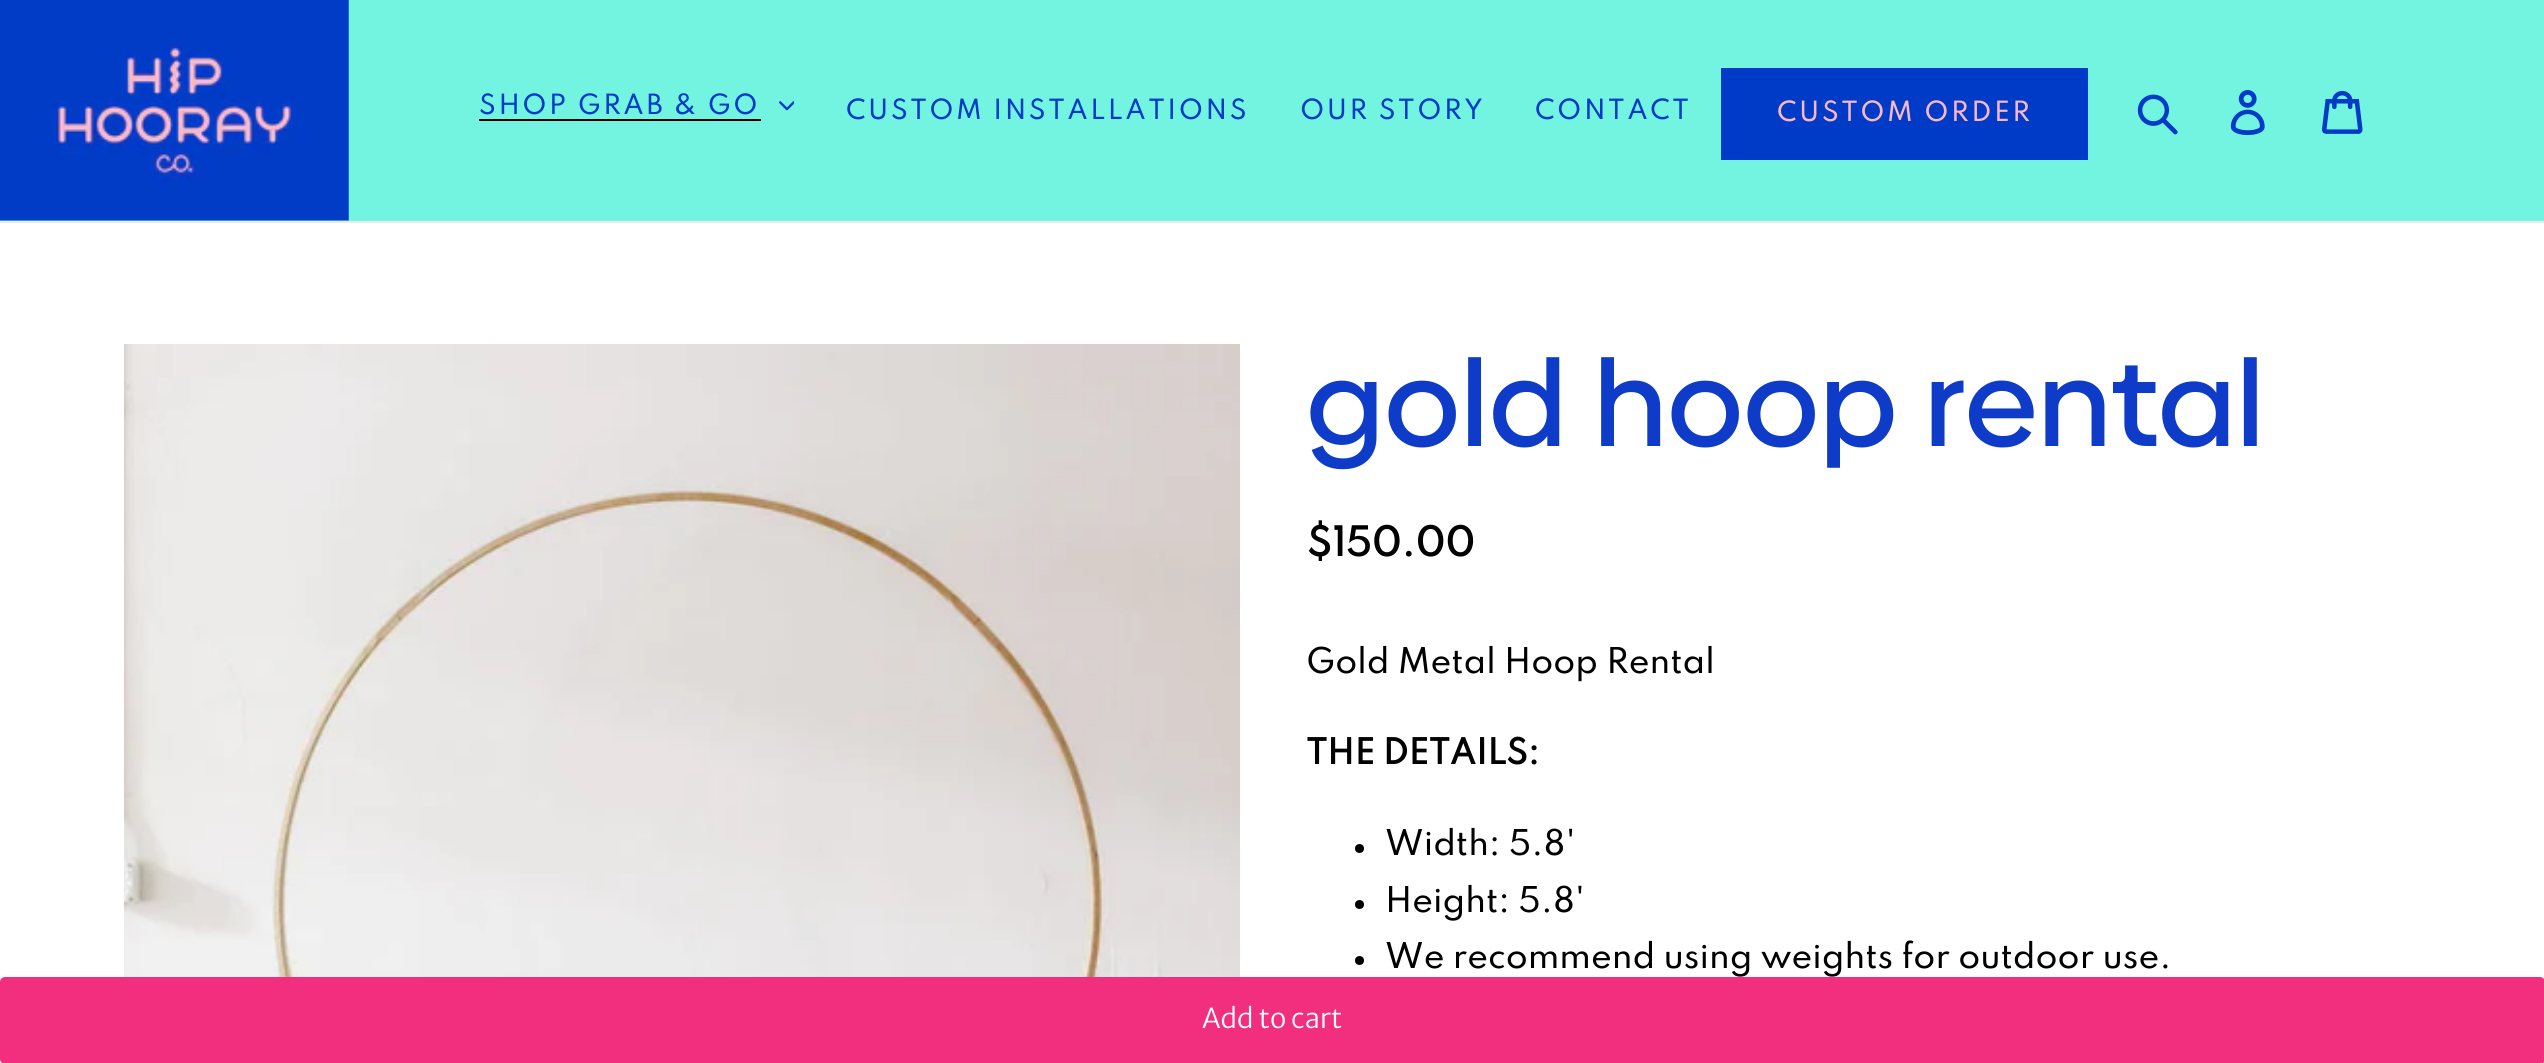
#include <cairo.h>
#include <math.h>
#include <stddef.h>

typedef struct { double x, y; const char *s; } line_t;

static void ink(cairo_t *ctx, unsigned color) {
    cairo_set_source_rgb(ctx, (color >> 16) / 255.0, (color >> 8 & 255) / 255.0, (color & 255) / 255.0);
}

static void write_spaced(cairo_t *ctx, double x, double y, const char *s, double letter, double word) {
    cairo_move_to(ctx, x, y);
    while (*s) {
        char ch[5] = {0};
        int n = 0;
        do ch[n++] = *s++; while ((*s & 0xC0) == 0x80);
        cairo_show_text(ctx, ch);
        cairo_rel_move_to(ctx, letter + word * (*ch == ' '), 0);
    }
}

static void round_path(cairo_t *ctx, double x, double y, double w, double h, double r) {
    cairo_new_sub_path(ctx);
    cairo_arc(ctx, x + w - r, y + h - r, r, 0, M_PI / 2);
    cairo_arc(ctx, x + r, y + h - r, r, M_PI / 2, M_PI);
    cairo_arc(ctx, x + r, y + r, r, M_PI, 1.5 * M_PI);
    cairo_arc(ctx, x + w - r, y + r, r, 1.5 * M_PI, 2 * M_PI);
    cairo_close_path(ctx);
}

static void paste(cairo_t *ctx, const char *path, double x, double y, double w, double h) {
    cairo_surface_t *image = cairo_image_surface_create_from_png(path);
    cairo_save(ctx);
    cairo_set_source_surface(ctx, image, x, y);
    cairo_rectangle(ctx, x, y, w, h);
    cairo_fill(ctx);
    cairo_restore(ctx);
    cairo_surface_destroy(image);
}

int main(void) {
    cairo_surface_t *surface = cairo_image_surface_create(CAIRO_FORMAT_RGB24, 2544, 1063);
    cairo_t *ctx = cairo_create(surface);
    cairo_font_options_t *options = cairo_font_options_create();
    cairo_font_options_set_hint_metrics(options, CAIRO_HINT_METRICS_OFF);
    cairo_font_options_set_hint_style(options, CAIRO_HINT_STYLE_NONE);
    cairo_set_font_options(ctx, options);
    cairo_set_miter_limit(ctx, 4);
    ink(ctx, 0xFFFFFF);
    cairo_paint(ctx);
    ink(ctx, 0x73F4E1);
    cairo_rectangle(ctx, 0, 0, 2544, 221);
    cairo_fill(ctx);
    ink(ctx, 0xEBEBEB);
    cairo_rectangle(ctx, 0, 221, 2544, 2);
    cairo_fill(ctx);
    paste(ctx, "media/1.png", 0, 0, 349, 221);
    cairo_select_font_face(ctx, "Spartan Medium", CAIRO_FONT_SLANT_NORMAL, CAIRO_FONT_WEIGHT_NORMAL);
    cairo_set_font_size(ctx, 24.75);
    ink(ctx, 0x003BC7);
    write_spaced(ctx, 479, 114, "SHOP GRAB & GO", 2.5, 0);
    ink(ctx, 0x000000);
    cairo_rectangle(ctx, 479, 119, 282, 2);
    cairo_fill(ctx);
    paste(ctx, "media/2.png", 779, 101, 15, 10);
    ink(ctx, 0x003BC7);
    {
        static const line_t items[] = {
            {846, 119, "CUSTOM INSTALLATIONS"},
            {1300, 119, "OUR STORY"},
            {1535, 119, "CONTACT"},
        };
        for (size_t i = 0; i < sizeof items / sizeof *items; i++) {
            write_spaced(ctx, items[i].x, items[i].y, items[i].s, 2.5, 0);
        }
    }
    cairo_rectangle(ctx, 1721, 68, 367, 92);
    cairo_fill(ctx);
    ink(ctx, 0xFAB7C9);
    write_spaced(ctx, 1777, 121, "CUSTOM ORDER", 2.5, 0);
    paste(ctx, "media/3.png", 2137, 94, 41, 41);
    paste(ctx, "media/4.png", 2230, 90, 35, 45);
    paste(ctx, "media/5.png", 2322, 90, 41, 44);
    paste(ctx, "media/6.png", 124, 344, 1116, 633);
    cairo_select_font_face(ctx, "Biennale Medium", CAIRO_FONT_SLANT_NORMAL, CAIRO_FONT_WEIGHT_NORMAL);
    cairo_set_font_size(ctx, 121.5);
    ink(ctx, 0x0E3BC7);
    cairo_move_to(ctx, 1306, 446);
    cairo_show_text(ctx, "gold hoop rental");
    cairo_select_font_face(ctx, "Spartan", CAIRO_FONT_SLANT_NORMAL, CAIRO_FONT_WEIGHT_BOLD);
    cairo_set_font_size(ctx, 36);
    ink(ctx, 0x000000);
    cairo_move_to(ctx, 1306, 556);
    cairo_show_text(ctx, "$150.00");
    cairo_select_font_face(ctx, "Spartan Medium", CAIRO_FONT_SLANT_NORMAL, CAIRO_FONT_WEIGHT_NORMAL);
    cairo_set_font_size(ctx, 31.5);
    cairo_move_to(ctx, 1306, 673);
    cairo_show_text(ctx, "Gold Metal Hoop Rental");
    cairo_select_font_face(ctx, "Spartan", CAIRO_FONT_SLANT_NORMAL, CAIRO_FONT_WEIGHT_BOLD);
    cairo_move_to(ctx, 1306, 764);
    cairo_show_text(ctx, "THE DETAILS:");
    cairo_new_path(ctx);
    cairo_arc(ctx, 1359.5, 848.5, 4.5, 0, 2 * M_PI);
    cairo_fill(ctx);
    cairo_select_font_face(ctx, "Spartan Medium", CAIRO_FONT_SLANT_NORMAL, CAIRO_FONT_WEIGHT_NORMAL);
    cairo_move_to(ctx, 1385, 855);
    cairo_show_text(ctx, "Width: 5.8'");
    cairo_new_path(ctx);
    cairo_arc(ctx, 1359.5, 904.5, 4.5, 0, 2 * M_PI);
    cairo_fill(ctx);
    cairo_move_to(ctx, 1385, 912);
    cairo_show_text(ctx, "Height: 5.8'");
    cairo_new_path(ctx);
    cairo_arc(ctx, 1359.5, 960.5, 4.5, 0, 2 * M_PI);
    cairo_fill(ctx);
    cairo_move_to(ctx, 1385, 968);
    cairo_show_text(ctx, "We recommend using weights for outdoor use.");
    ink(ctx, 0xF22F7E);
    round_path(ctx, 0, 977, 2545, 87, 5);
    cairo_fill(ctx);
    cairo_select_font_face(ctx, "Merriweather Sans Light", CAIRO_FONT_SLANT_NORMAL, CAIRO_FONT_WEIGHT_NORMAL);
    cairo_set_font_size(ctx, 27.25);
    ink(ctx, 0xFFFFFF);
    cairo_move_to(ctx, 1202, 1028);
    cairo_show_text(ctx, "Add to cart");
    cairo_surface_write_to_png(surface, "image.png");
    cairo_font_options_destroy(options);
    cairo_destroy(ctx);
    cairo_surface_destroy(surface);
    return 0;
}
